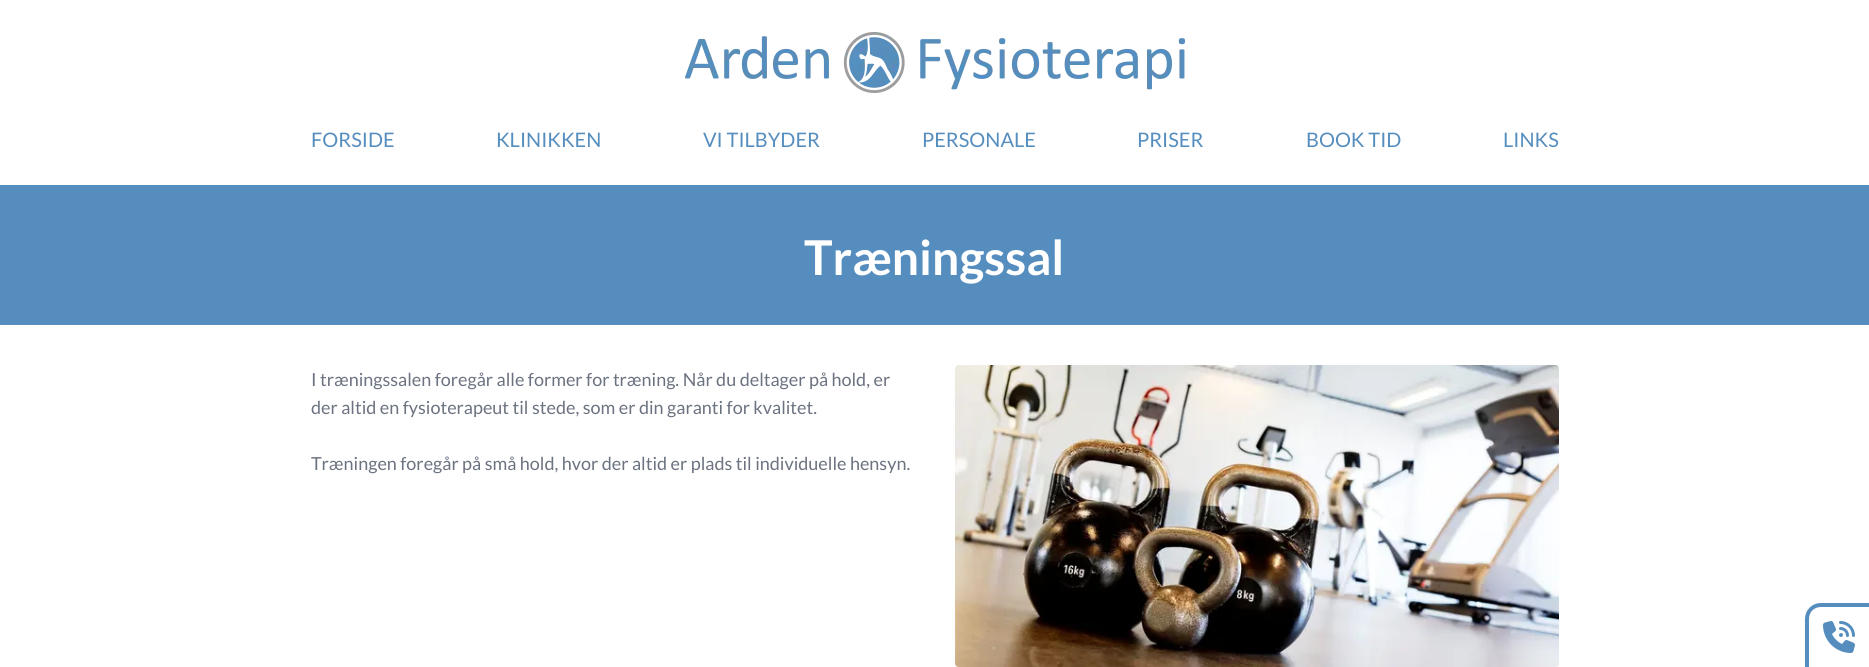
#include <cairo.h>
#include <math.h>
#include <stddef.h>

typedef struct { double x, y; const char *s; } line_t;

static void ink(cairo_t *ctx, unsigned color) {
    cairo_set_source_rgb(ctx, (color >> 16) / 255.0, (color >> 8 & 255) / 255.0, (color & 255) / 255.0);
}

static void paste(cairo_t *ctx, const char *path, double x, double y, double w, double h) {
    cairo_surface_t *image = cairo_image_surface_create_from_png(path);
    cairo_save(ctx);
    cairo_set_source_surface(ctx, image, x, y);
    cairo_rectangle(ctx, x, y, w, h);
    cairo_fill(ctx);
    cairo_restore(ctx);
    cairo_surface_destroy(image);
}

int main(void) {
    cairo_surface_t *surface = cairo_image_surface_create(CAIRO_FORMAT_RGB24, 1869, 667);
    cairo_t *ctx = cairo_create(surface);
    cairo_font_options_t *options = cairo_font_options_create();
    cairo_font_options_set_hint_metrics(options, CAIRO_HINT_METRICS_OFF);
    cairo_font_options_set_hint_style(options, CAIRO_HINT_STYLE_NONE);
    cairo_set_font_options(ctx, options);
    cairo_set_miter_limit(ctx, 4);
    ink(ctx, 0xFFFFFF);
    cairo_paint(ctx);
    paste(ctx, "media/1.png", 685, 32, 500, 61);
    cairo_select_font_face(ctx, "Lato", CAIRO_FONT_SLANT_NORMAL, CAIRO_FONT_WEIGHT_NORMAL);
    cairo_set_font_size(ctx, 20);
    ink(ctx, 0x558EBE);
    {
        static const line_t items[] = {
            {311, 147, "FORSIDE"},
            {496, 147, "KLINIKKEN"},
            {703, 147, "VI TILBYDER"},
            {922, 147, "PERSONALE"},
            {1137, 147, "PRISER"},
            {1306, 147, "BOOK TID"},
            {1503, 147, "LINKS"},
        };
        for (size_t i = 0; i < sizeof items / sizeof *items; i++) {
            cairo_move_to(ctx, items[i].x, items[i].y);
            cairo_show_text(ctx, items[i].s);
        }
    }
    cairo_rectangle(ctx, 0, 185, 1869, 140);
    cairo_fill(ctx);
    cairo_select_font_face(ctx, "Lato", CAIRO_FONT_SLANT_NORMAL, CAIRO_FONT_WEIGHT_BOLD);
    cairo_set_font_size(ctx, 48);
    ink(ctx, 0xFFFFFF);
    cairo_move_to(ctx, 804, 275);
    cairo_show_text(ctx, "Træningssal");
    cairo_select_font_face(ctx, "Lato", CAIRO_FONT_SLANT_NORMAL, CAIRO_FONT_WEIGHT_NORMAL);
    cairo_set_font_size(ctx, 18);
    ink(ctx, 0x6B7280);
    {
        static const line_t items[] = {
            {311, 386, "I træningssalen foregår alle former for træning. Når du deltager på hold, er"},
            {311, 414, "der altid en fysioterapeut til stede, som er din garanti for kvalitet."},
            {311, 470, "Træningen foregår på små hold, hvor der altid er plads til individuelle hensyn."},
        };
        for (size_t i = 0; i < sizeof items / sizeof *items; i++) {
            cairo_move_to(ctx, items[i].x, items[i].y);
            cairo_show_text(ctx, items[i].s);
        }
    }
    paste(ctx, "media/2.png", 955, 365, 604, 302);
    ink(ctx, 0x558EBE);
    cairo_set_fill_rule(ctx, CAIRO_FILL_RULE_EVEN_ODD);
    cairo_new_path(ctx);
    cairo_move_to(ctx, 1821, 603);
    cairo_line_to(ctx, 1869, 603);
    cairo_line_to(ctx, 1869, 667);
    cairo_line_to(ctx, 1805, 667);
    cairo_line_to(ctx, 1805, 619);
    cairo_curve_to(ctx, 1805, 610, 1812, 603, 1821, 603);
    cairo_close_path(ctx);
    cairo_move_to(ctx, 1821, 607);
    cairo_line_to(ctx, 1869, 607);
    cairo_line_to(ctx, 1869, 667);
    cairo_line_to(ctx, 1809, 667);
    cairo_line_to(ctx, 1809, 619);
    cairo_curve_to(ctx, 1809, 612, 1814, 607, 1821, 607);
    cairo_close_path(ctx);
    cairo_fill(ctx);
    paste(ctx, "media/3.png", 1823, 621, 32, 32);
    cairo_surface_write_to_png(surface, "image.png");
    cairo_font_options_destroy(options);
    cairo_destroy(ctx);
    cairo_surface_destroy(surface);
    return 0;
}
